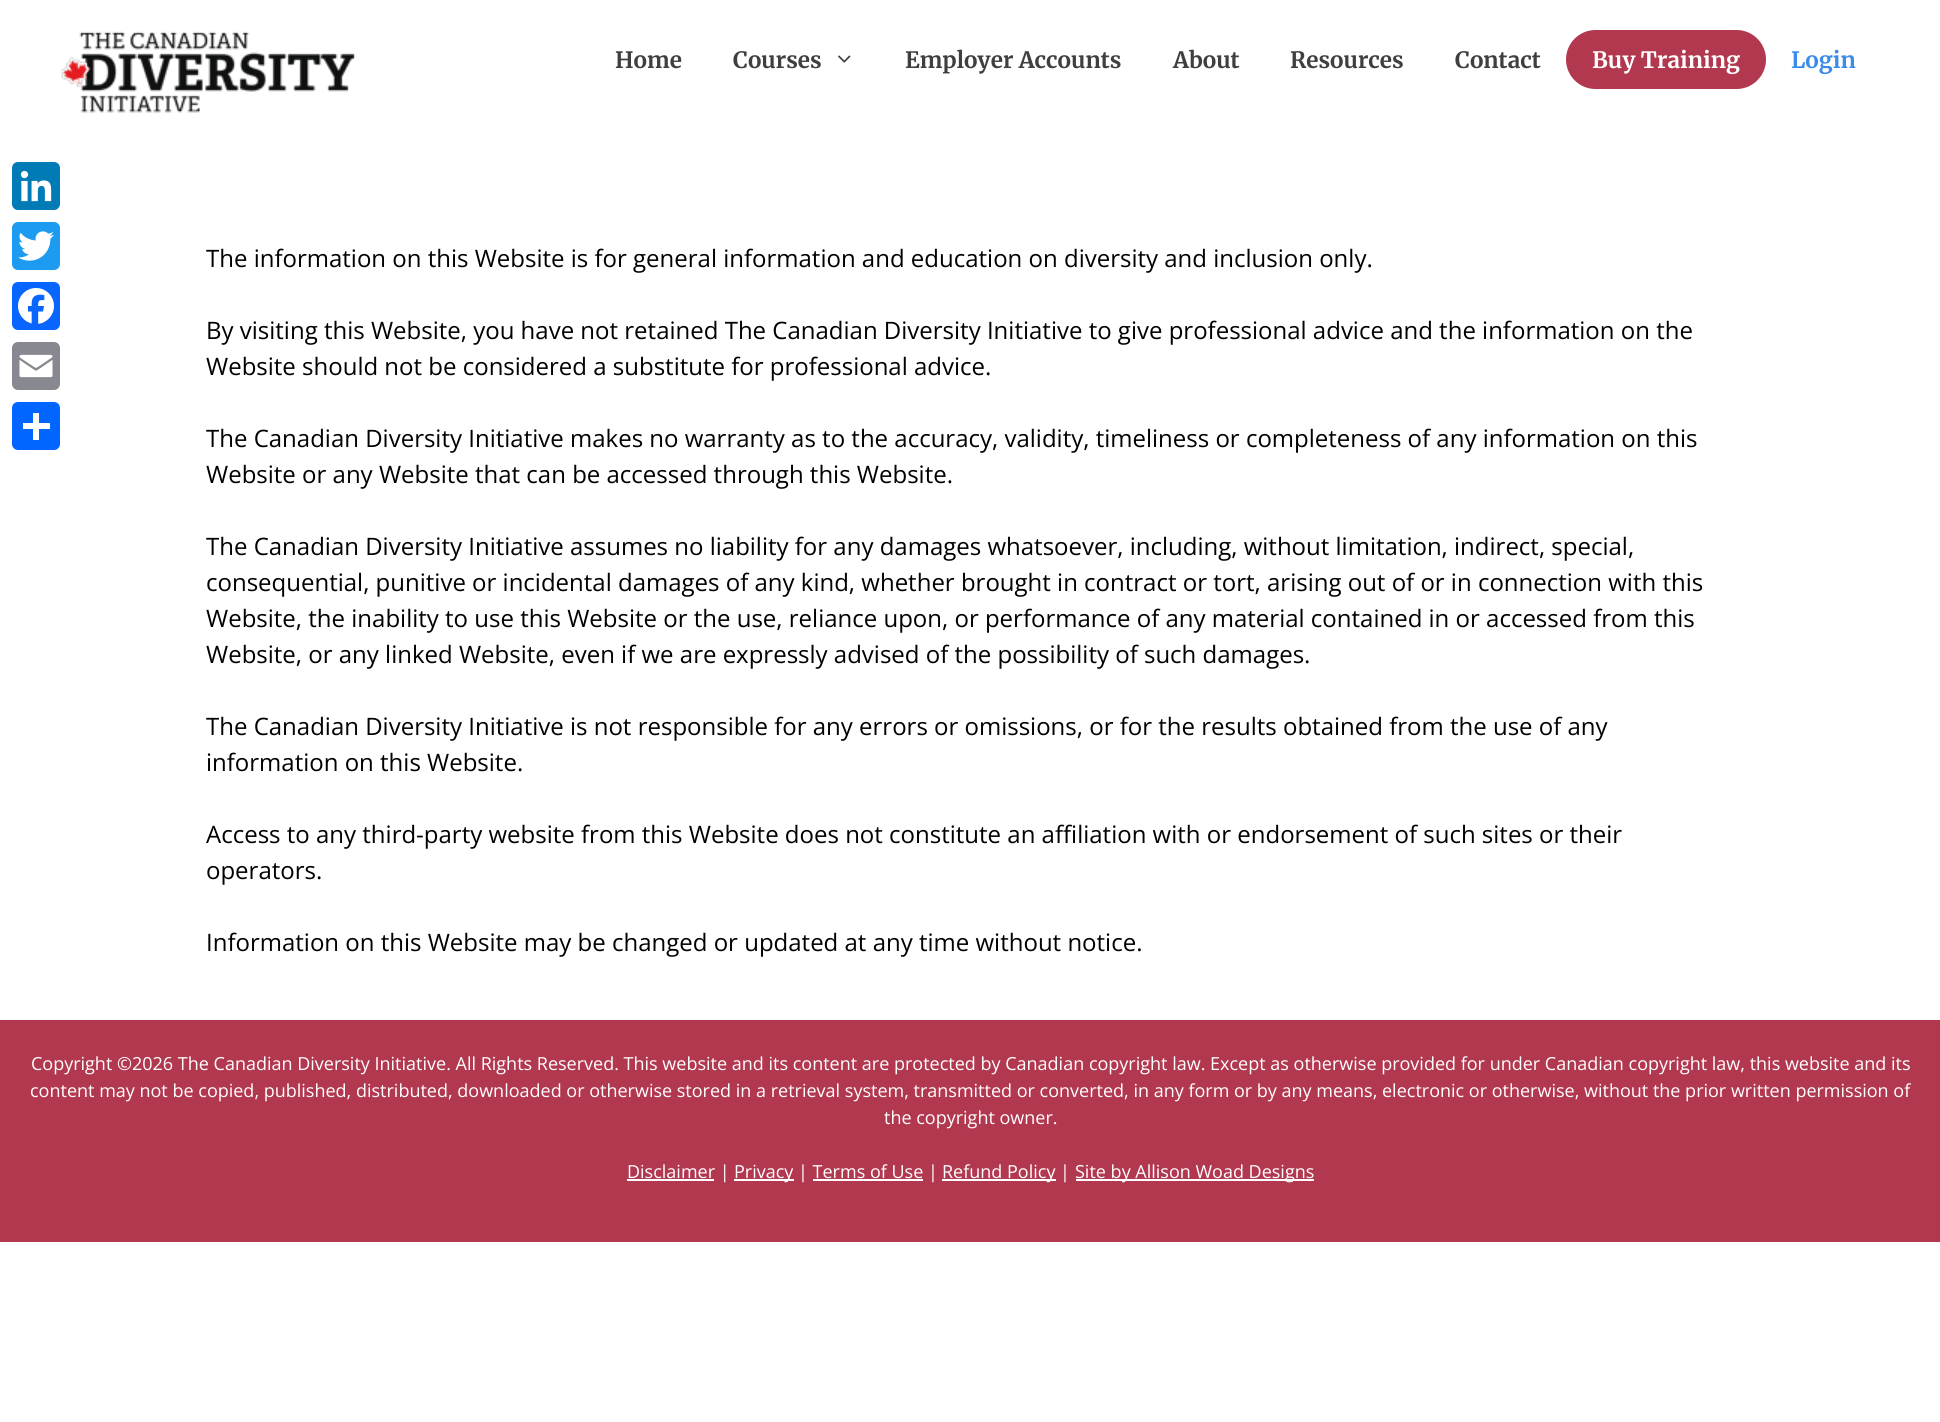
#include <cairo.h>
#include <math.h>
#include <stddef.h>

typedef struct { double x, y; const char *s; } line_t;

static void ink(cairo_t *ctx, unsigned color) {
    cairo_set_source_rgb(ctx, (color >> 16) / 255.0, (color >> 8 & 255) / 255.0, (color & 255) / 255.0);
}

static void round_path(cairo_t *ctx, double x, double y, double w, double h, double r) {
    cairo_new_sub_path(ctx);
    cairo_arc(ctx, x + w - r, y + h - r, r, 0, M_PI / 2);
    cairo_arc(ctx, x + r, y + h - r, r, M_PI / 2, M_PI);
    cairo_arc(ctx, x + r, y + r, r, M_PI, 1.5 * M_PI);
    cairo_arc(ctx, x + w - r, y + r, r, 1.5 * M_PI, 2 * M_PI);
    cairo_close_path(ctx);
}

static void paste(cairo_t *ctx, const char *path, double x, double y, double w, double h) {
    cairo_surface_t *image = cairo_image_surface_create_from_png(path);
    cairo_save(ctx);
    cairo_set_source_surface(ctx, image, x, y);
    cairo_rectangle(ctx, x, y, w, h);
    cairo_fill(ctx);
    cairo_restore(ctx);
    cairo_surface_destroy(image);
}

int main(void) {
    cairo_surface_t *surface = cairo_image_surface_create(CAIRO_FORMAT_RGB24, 1940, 1422);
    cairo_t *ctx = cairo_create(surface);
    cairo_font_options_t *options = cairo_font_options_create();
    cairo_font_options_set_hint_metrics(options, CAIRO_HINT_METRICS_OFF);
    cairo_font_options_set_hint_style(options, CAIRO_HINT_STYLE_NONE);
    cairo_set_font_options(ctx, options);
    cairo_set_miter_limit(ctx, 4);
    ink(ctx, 0xFFFFFF);
    cairo_paint(ctx);
    paste(ctx, "media/1.png", 60, 31, 295, 82);
    cairo_select_font_face(ctx, "Merriweather", CAIRO_FONT_SLANT_NORMAL, CAIRO_FONT_WEIGHT_BOLD);
    cairo_set_font_size(ctx, 22.5);
    ink(ctx, 0x3F3F3F);
    cairo_move_to(ctx, 615, 68);
    cairo_show_text(ctx, "Home");
    cairo_move_to(ctx, 733, 68);
    cairo_show_text(ctx, "Courses");
    paste(ctx, "media/2.png", 838, 55, 13, 8);
    {
        static const line_t items[] = {
            {905, 68, "Employer Accounts"},
            {1173, 68, "About"},
            {1290, 68, "Resources"},
            {1455, 68, "Contact"},
        };
        for (size_t i = 0; i < sizeof items / sizeof *items; i++) {
            cairo_move_to(ctx, items[i].x, items[i].y);
            cairo_show_text(ctx, items[i].s);
        }
    }
    ink(ctx, 0xB23850);
    round_path(ctx, 1566, 30, 200, 59, 29.5);
    cairo_fill(ctx);
    ink(ctx, 0xFFFFFF);
    cairo_move_to(ctx, 1592, 68);
    cairo_show_text(ctx, "Buy Training");
    ink(ctx, 0x3B8BEB);
    cairo_move_to(ctx, 1791, 68);
    cairo_show_text(ctx, "Login");
    ink(ctx, 0x007BB5);
    round_path(ctx, 12, 162, 48, 48, 6);
    cairo_fill(ctx);
    paste(ctx, "media/3.png", 20, 170, 32, 32);
    ink(ctx, 0x1D9BF0);
    round_path(ctx, 12, 222, 48, 48, 6);
    cairo_fill(ctx);
    paste(ctx, "media/4.png", 18, 231, 36, 30);
    ink(ctx, 0x0866FF);
    round_path(ctx, 12, 282, 48, 48, 6);
    cairo_fill(ctx);
    paste(ctx, "media/5.png", 18, 288, 36, 36);
    ink(ctx, 0x888990);
    round_path(ctx, 12, 342, 48, 48, 6);
    cairo_fill(ctx);
    paste(ctx, "media/6.png", 19, 354, 34, 24);
    ink(ctx, 0x0166FF);
    round_path(ctx, 12, 402, 48, 48, 6);
    cairo_fill(ctx);
    ink(ctx, 0xFFFFFF);
    cairo_rectangle(ctx, 33, 413, 6, 27);
    cairo_fill(ctx);
    cairo_rectangle(ctx, 23, 423, 27, 6);
    cairo_fill(ctx);
    cairo_select_font_face(ctx, "Open Sans", CAIRO_FONT_SLANT_NORMAL, CAIRO_FONT_WEIGHT_NORMAL);
    cairo_set_font_size(ctx, 24);
    ink(ctx, 0x000000);
    {
        static const line_t items[] = {
            {206, 267, "The information on this Website is for general information and education on diversity and inclusion only."},
            {206, 339, "By visiting this Website, you have not retained The Canadian Diversity Initiative to give professional advice and the information on the"},
            {206, 375, "Website should not be considered a substitute for professional advice."},
            {206, 447, "The Canadian Diversity Initiative makes no warranty as to the accuracy, validity, timeliness or completeness of any information on this"},
            {206, 483, "Website or any Website that can be accessed through this Website."},
            {206, 555, "The Canadian Diversity Initiative assumes no liability for any damages whatsoever, including, without limitation, indirect, special,"},
            {206, 591, "consequential, punitive or incidental damages of any kind, whether brought in contract or tort, arising out of or in connection with this"},
            {206, 627, "Website, the inability to use this Website or the use, reliance upon, or performance of any material contained in or accessed from this"},
            {206, 663, "Website, or any linked Website, even if we are expressly advised of the possibility of such damages."},
            {206, 735, "The Canadian Diversity Initiative is not responsible for any errors or omissions, or for the results obtained from the use of any"},
            {206, 771, "information on this Website."},
            {206, 843, "Access to any third-party website from this Website does not constitute an affiliation with or endorsement of such sites or their"},
            {206, 879, "operators."},
            {206, 951, "Information on this Website may be changed or updated at any time without notice."},
        };
        for (size_t i = 0; i < sizeof items / sizeof *items; i++) {
            cairo_move_to(ctx, items[i].x, items[i].y);
            cairo_show_text(ctx, items[i].s);
        }
    }
    ink(ctx, 0xB23850);
    cairo_rectangle(ctx, 0, 1020, 1940, 222);
    cairo_fill(ctx);
    cairo_set_font_size(ctx, 18);
    ink(ctx, 0xFFFFFF);
    {
        static const line_t items[] = {
            {31, 1070, "Copyright ©2026 The Canadian Diversity Initiative. All Rights Reserved. This website and its content are protected by Canadian copyright law. Except as otherwise provided for under Canadian copyright law, this website and its"},
            {30, 1097, "content may not be copied, published, distributed, downloaded or otherwise stored in a retrieval system, transmitted or converted, in any form or by any means, electronic or otherwise, without the prior written permission of"},
            {884, 1124, "the copyright owner."},
        };
        for (size_t i = 0; i < sizeof items / sizeof *items; i++) {
            cairo_move_to(ctx, items[i].x, items[i].y);
            cairo_show_text(ctx, items[i].s);
        }
    }
    cairo_rectangle(ctx, 627, 1179, 87, 2);
    cairo_fill(ctx);
    cairo_move_to(ctx, 627, 1178);
    cairo_show_text(ctx, "Disclaimer |");
    cairo_rectangle(ctx, 734, 1179, 60, 2);
    cairo_fill(ctx);
    cairo_move_to(ctx, 734, 1178);
    cairo_show_text(ctx, "Privacy | Terms of Use |");
    cairo_rectangle(ctx, 942, 1179, 114, 2);
    cairo_fill(ctx);
    cairo_move_to(ctx, 942, 1178);
    cairo_show_text(ctx, "Refund Policy |");
    cairo_rectangle(ctx, 1076, 1179, 238, 2);
    cairo_fill(ctx);
    cairo_move_to(ctx, 1075, 1178);
    cairo_show_text(ctx, "Site by Allison Woad Designs");
    cairo_rectangle(ctx, 813, 1179, 110, 2);
    cairo_fill(ctx);
    cairo_surface_write_to_png(surface, "image.png");
    cairo_font_options_destroy(options);
    cairo_destroy(ctx);
    cairo_surface_destroy(surface);
    return 0;
}
